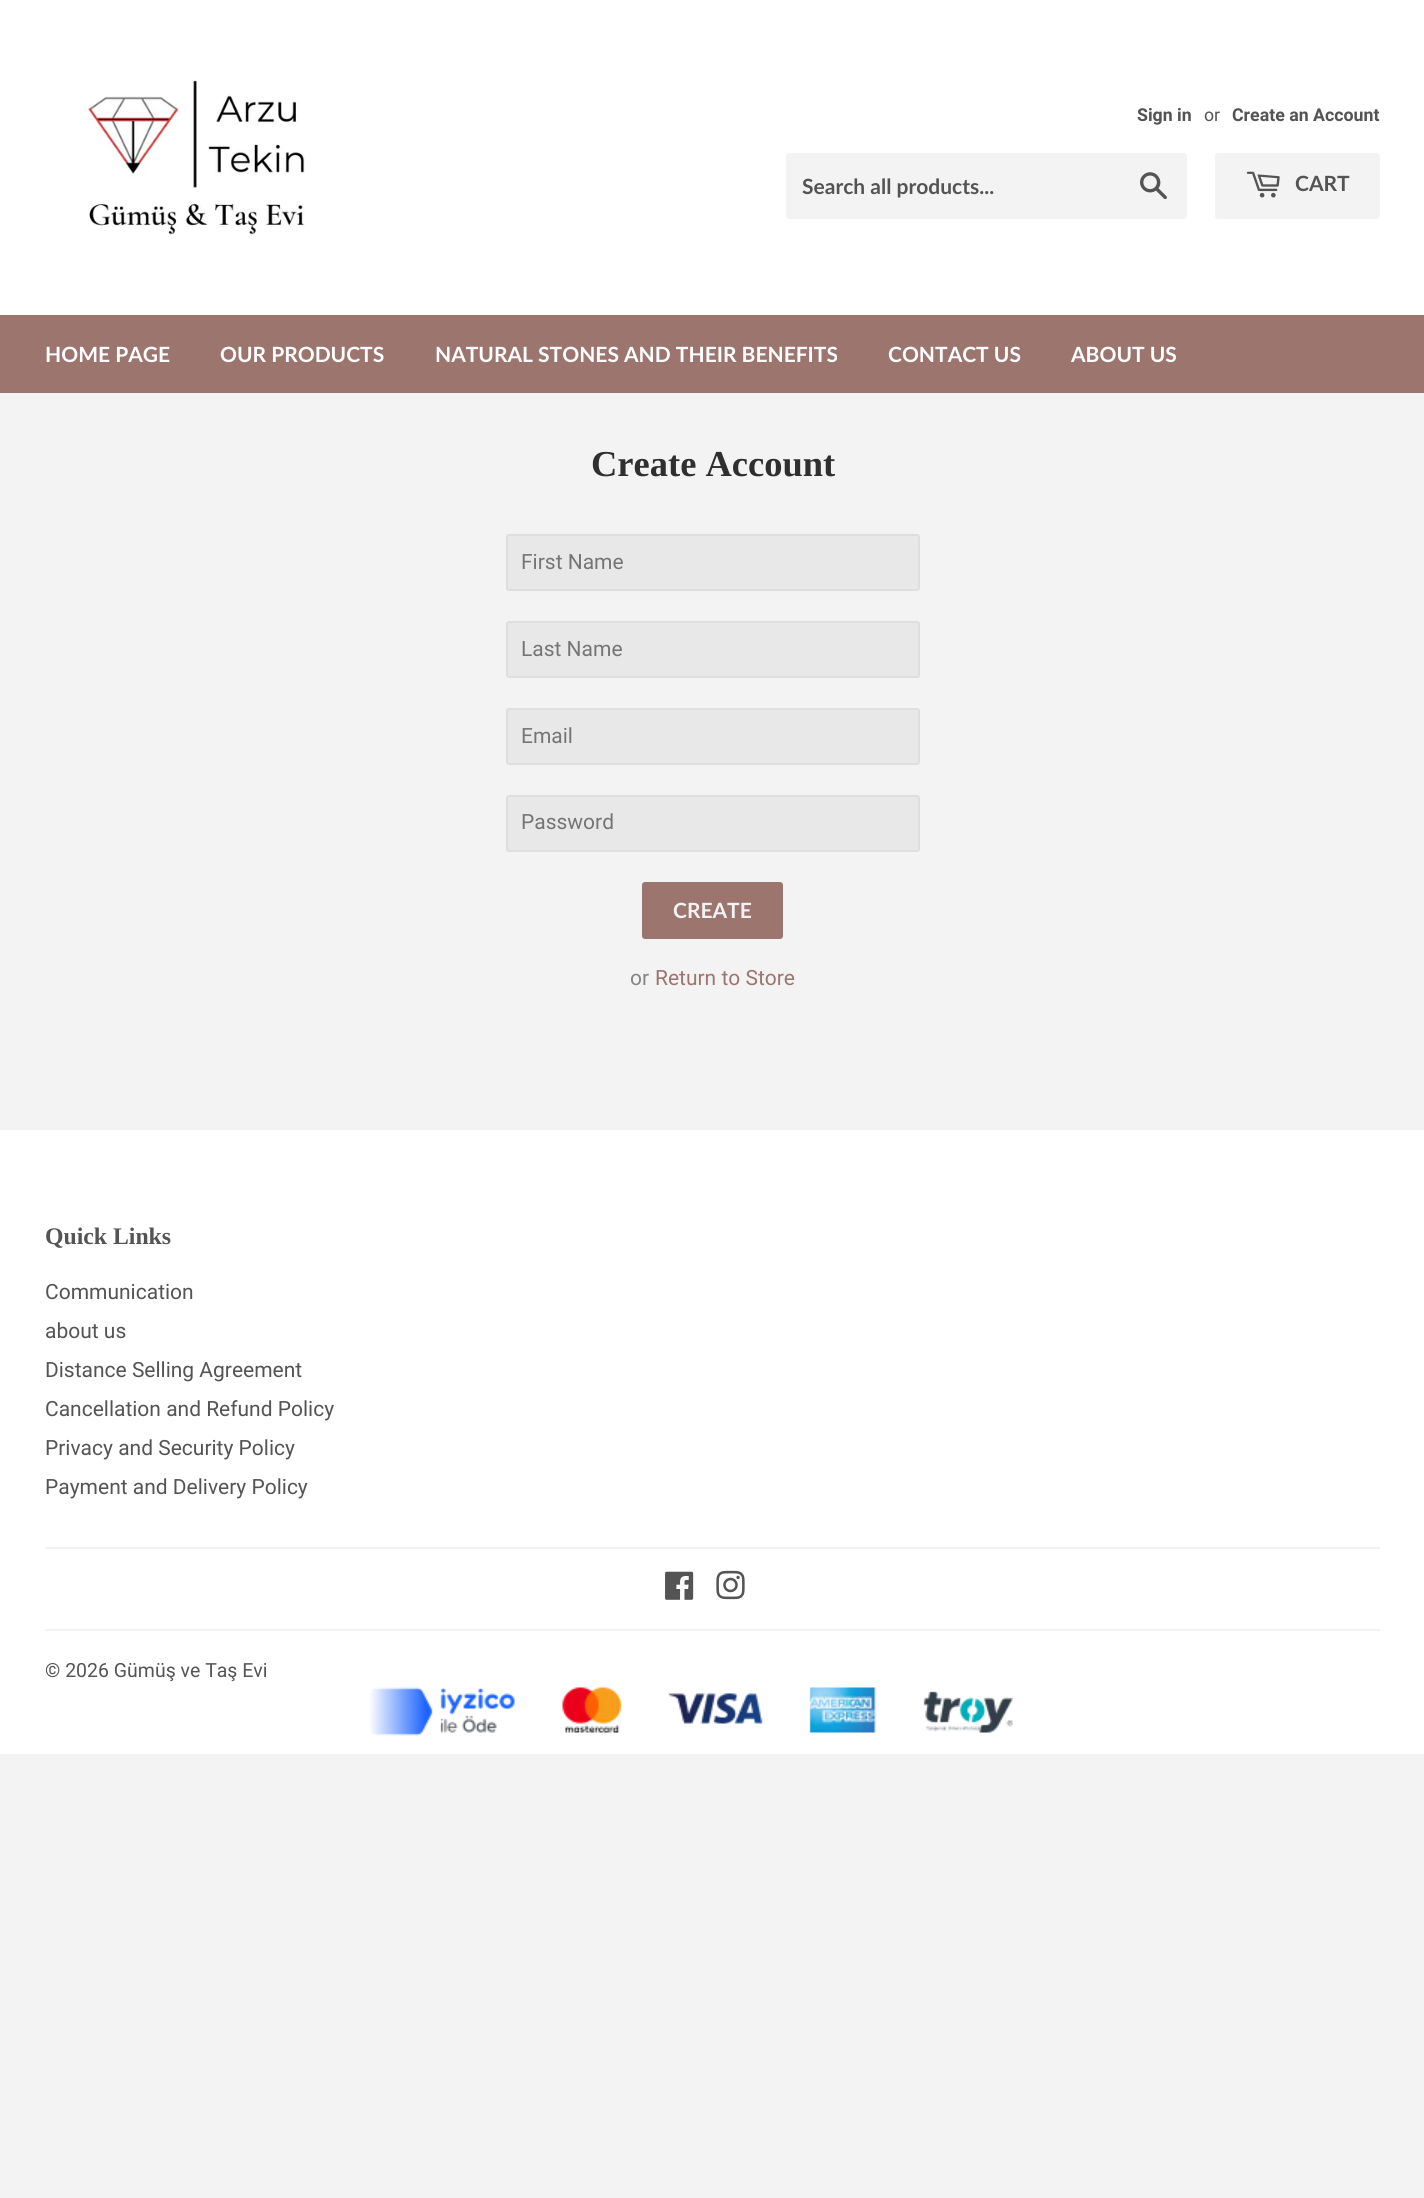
#include <cairo.h>
#include <math.h>
#include <stddef.h>

typedef struct { double x, y; const char *s; } line_t;

static void ink(cairo_t *ctx, unsigned color) {
    cairo_set_source_rgb(ctx, (color >> 16) / 255.0, (color >> 8 & 255) / 255.0, (color & 255) / 255.0);
}

static void round_path(cairo_t *ctx, double x, double y, double w, double h, double r) {
    cairo_new_sub_path(ctx);
    cairo_arc(ctx, x + w - r, y + h - r, r, 0, M_PI / 2);
    cairo_arc(ctx, x + r, y + h - r, r, M_PI / 2, M_PI);
    cairo_arc(ctx, x + r, y + r, r, M_PI, 1.5 * M_PI);
    cairo_arc(ctx, x + w - r, y + r, r, 1.5 * M_PI, 2 * M_PI);
    cairo_close_path(ctx);
}

static void paste(cairo_t *ctx, const char *path, double x, double y, double w, double h) {
    cairo_surface_t *image = cairo_image_surface_create_from_png(path);
    cairo_save(ctx);
    cairo_set_source_surface(ctx, image, x, y);
    cairo_rectangle(ctx, x, y, w, h);
    cairo_fill(ctx);
    cairo_restore(ctx);
    cairo_surface_destroy(image);
}

int main(void) {
    cairo_surface_t *surface = cairo_image_surface_create(CAIRO_FORMAT_RGB24, 1424, 2198);
    cairo_t *ctx = cairo_create(surface);
    cairo_font_options_t *options = cairo_font_options_create();
    cairo_font_options_set_hint_metrics(options, CAIRO_HINT_METRICS_OFF);
    cairo_font_options_set_hint_style(options, CAIRO_HINT_STYLE_NONE);
    cairo_set_font_options(ctx, options);
    cairo_set_miter_limit(ctx, 4);
    ink(ctx, 0xF3F3F3);
    cairo_paint(ctx);
    ink(ctx, 0xFFFFFF);
    cairo_rectangle(ctx, 0, 0, 1424, 315);
    cairo_fill(ctx);
    paste(ctx, "media/1.png", 88, 79, 217, 156);
    cairo_select_font_face(ctx, "Roboto", CAIRO_FONT_SLANT_NORMAL, CAIRO_FONT_WEIGHT_BOLD);
    cairo_set_font_size(ctx, 17.75);
    ink(ctx, 0x545454);
    cairo_move_to(ctx, 1137, 121);
    cairo_show_text(ctx, "Sign in");
    cairo_select_font_face(ctx, "Roboto", CAIRO_FONT_SLANT_NORMAL, CAIRO_FONT_WEIGHT_NORMAL);
    cairo_move_to(ctx, 1204, 121);
    cairo_show_text(ctx, "or");
    cairo_select_font_face(ctx, "Roboto", CAIRO_FONT_SLANT_NORMAL, CAIRO_FONT_WEIGHT_BOLD);
    cairo_move_to(ctx, 1232, 121);
    cairo_show_text(ctx, "Create an Account");
    ink(ctx, 0xF3F3F3);
    round_path(ctx, 786, 153, 401, 66, 3);
    cairo_fill(ctx);
    cairo_select_font_face(ctx, "Lato", CAIRO_FONT_SLANT_NORMAL, CAIRO_FONT_WEIGHT_BOLD);
    cairo_set_font_size(ctx, 21);
    ink(ctx, 0x545454);
    cairo_move_to(ctx, 802, 194);
    cairo_show_text(ctx, "Search all products...");
    paste(ctx, "media/2.png", 1140, 172, 27, 28);
    ink(ctx, 0xF3F3F3);
    round_path(ctx, 1215, 153, 165, 66, 3);
    cairo_fill(ctx);
    paste(ctx, "media/3.png", 1246, 171, 34, 27);
    ink(ctx, 0x545454);
    cairo_move_to(ctx, 1295, 191);
    cairo_show_text(ctx, "CART");
    ink(ctx, 0x9C756F);
    cairo_rectangle(ctx, 0, 315, 1424, 78);
    cairo_fill(ctx);
    ink(ctx, 0xFFFFFF);
    {
        static const line_t items[] = {
            {45, 362, "HOME PAGE"},
            {220, 362, "OUR PRODUCTS"},
            {435, 362, "NATURAL STONES AND THEIR BENEFITS"},
            {888, 362, "CONTACT US"},
            {1071, 362, "ABOUT US"},
        };
        for (size_t i = 0; i < sizeof items / sizeof *items; i++) {
            cairo_move_to(ctx, items[i].x, items[i].y);
            cairo_show_text(ctx, items[i].s);
        }
    }
    cairo_select_font_face(ctx, "Liberation Serif", CAIRO_FONT_SLANT_NORMAL, CAIRO_FONT_WEIGHT_BOLD);
    cairo_set_font_size(ctx, 36.5);
    ink(ctx, 0x2F2F2F);
    cairo_move_to(ctx, 591, 476);
    cairo_show_text(ctx, "Create Account");
    ink(ctx, 0xE8E8E8);
    round_path(ctx, 507, 535, 412, 55, 2);
    cairo_fill_preserve(ctx);
    ink(ctx, 0xDEDEDE);
    cairo_stroke(ctx);
    cairo_select_font_face(ctx, "Roboto", CAIRO_FONT_SLANT_NORMAL, CAIRO_FONT_WEIGHT_NORMAL);
    cairo_set_font_size(ctx, 21);
    ink(ctx, 0x757575);
    cairo_move_to(ctx, 521, 569);
    cairo_show_text(ctx, "First Name");
    ink(ctx, 0xE8E8E8);
    round_path(ctx, 507, 622, 412, 55, 2);
    cairo_fill_preserve(ctx);
    ink(ctx, 0xDEDEDE);
    cairo_stroke(ctx);
    ink(ctx, 0x757575);
    cairo_move_to(ctx, 521, 656);
    cairo_show_text(ctx, "Last Name");
    ink(ctx, 0xE8E8E8);
    round_path(ctx, 507, 709, 412, 55, 2);
    cairo_fill_preserve(ctx);
    ink(ctx, 0xDEDEDE);
    cairo_stroke(ctx);
    ink(ctx, 0x757575);
    cairo_move_to(ctx, 521, 743);
    cairo_show_text(ctx, "Email");
    ink(ctx, 0xE8E8E8);
    round_path(ctx, 507, 796, 412, 55, 2);
    cairo_fill_preserve(ctx);
    ink(ctx, 0xDEDEDE);
    cairo_stroke(ctx);
    ink(ctx, 0x757575);
    cairo_move_to(ctx, 521, 829);
    cairo_show_text(ctx, "Password");
    ink(ctx, 0x9C756F);
    round_path(ctx, 642, 882, 141, 57, 3);
    cairo_fill(ctx);
    cairo_select_font_face(ctx, "Lato", CAIRO_FONT_SLANT_NORMAL, CAIRO_FONT_WEIGHT_BOLD);
    ink(ctx, 0xF3F3F3);
    cairo_move_to(ctx, 673, 918);
    cairo_show_text(ctx, "CREATE");
    cairo_select_font_face(ctx, "Roboto", CAIRO_FONT_SLANT_NORMAL, CAIRO_FONT_WEIGHT_NORMAL);
    ink(ctx, 0x858585);
    cairo_move_to(ctx, 630, 985);
    cairo_show_text(ctx, "or");
    ink(ctx, 0x9C756F);
    cairo_move_to(ctx, 655, 985);
    cairo_show_text(ctx, "Return to Store");
    ink(ctx, 0xFFFFFF);
    cairo_rectangle(ctx, 0, 1130, 1424, 624);
    cairo_fill(ctx);
    cairo_select_font_face(ctx, "Liberation Serif", CAIRO_FONT_SLANT_NORMAL, CAIRO_FONT_WEIGHT_BOLD);
    cairo_set_font_size(ctx, 23.75);
    ink(ctx, 0x545454);
    cairo_move_to(ctx, 45, 1244);
    cairo_show_text(ctx, "Quick Links");
    cairo_select_font_face(ctx, "Roboto", CAIRO_FONT_SLANT_NORMAL, CAIRO_FONT_WEIGHT_NORMAL);
    cairo_set_font_size(ctx, 21);
    {
        static const line_t items[] = {
            {45, 1299, "Communication"},
            {45, 1338, "about us"},
            {45, 1377, "Distance Selling Agreement"},
            {45, 1416, "Cancellation and Refund Policy"},
            {45, 1455, "Privacy and Security Policy"},
            {45, 1494, "Payment and Delivery Policy"},
        };
        for (size_t i = 0; i < sizeof items / sizeof *items; i++) {
            cairo_move_to(ctx, items[i].x, items[i].y);
            cairo_show_text(ctx, items[i].s);
        }
    }
    ink(ctx, 0xF2F2F2);
    cairo_rectangle(ctx, 45, 1547, 1335, 2);
    cairo_fill(ctx);
    paste(ctx, "media/4.png", 665, 1571, 29, 29);
    paste(ctx, "media/5.png", 716, 1570, 29, 30);
    cairo_rectangle(ctx, 45, 1629, 1335, 2);
    cairo_fill(ctx);
    cairo_set_font_size(ctx, 19.5);
    ink(ctx, 0x545454);
    cairo_move_to(ctx, 45, 1677);
    cairo_show_text(ctx, "© 2026 Gümüş ve Taş Evi");
    paste(ctx, "media/6.png", 370, 1687, 643, 49);
    cairo_surface_write_to_png(surface, "image.png");
    cairo_font_options_destroy(options);
    cairo_destroy(ctx);
    cairo_surface_destroy(surface);
    return 0;
}
